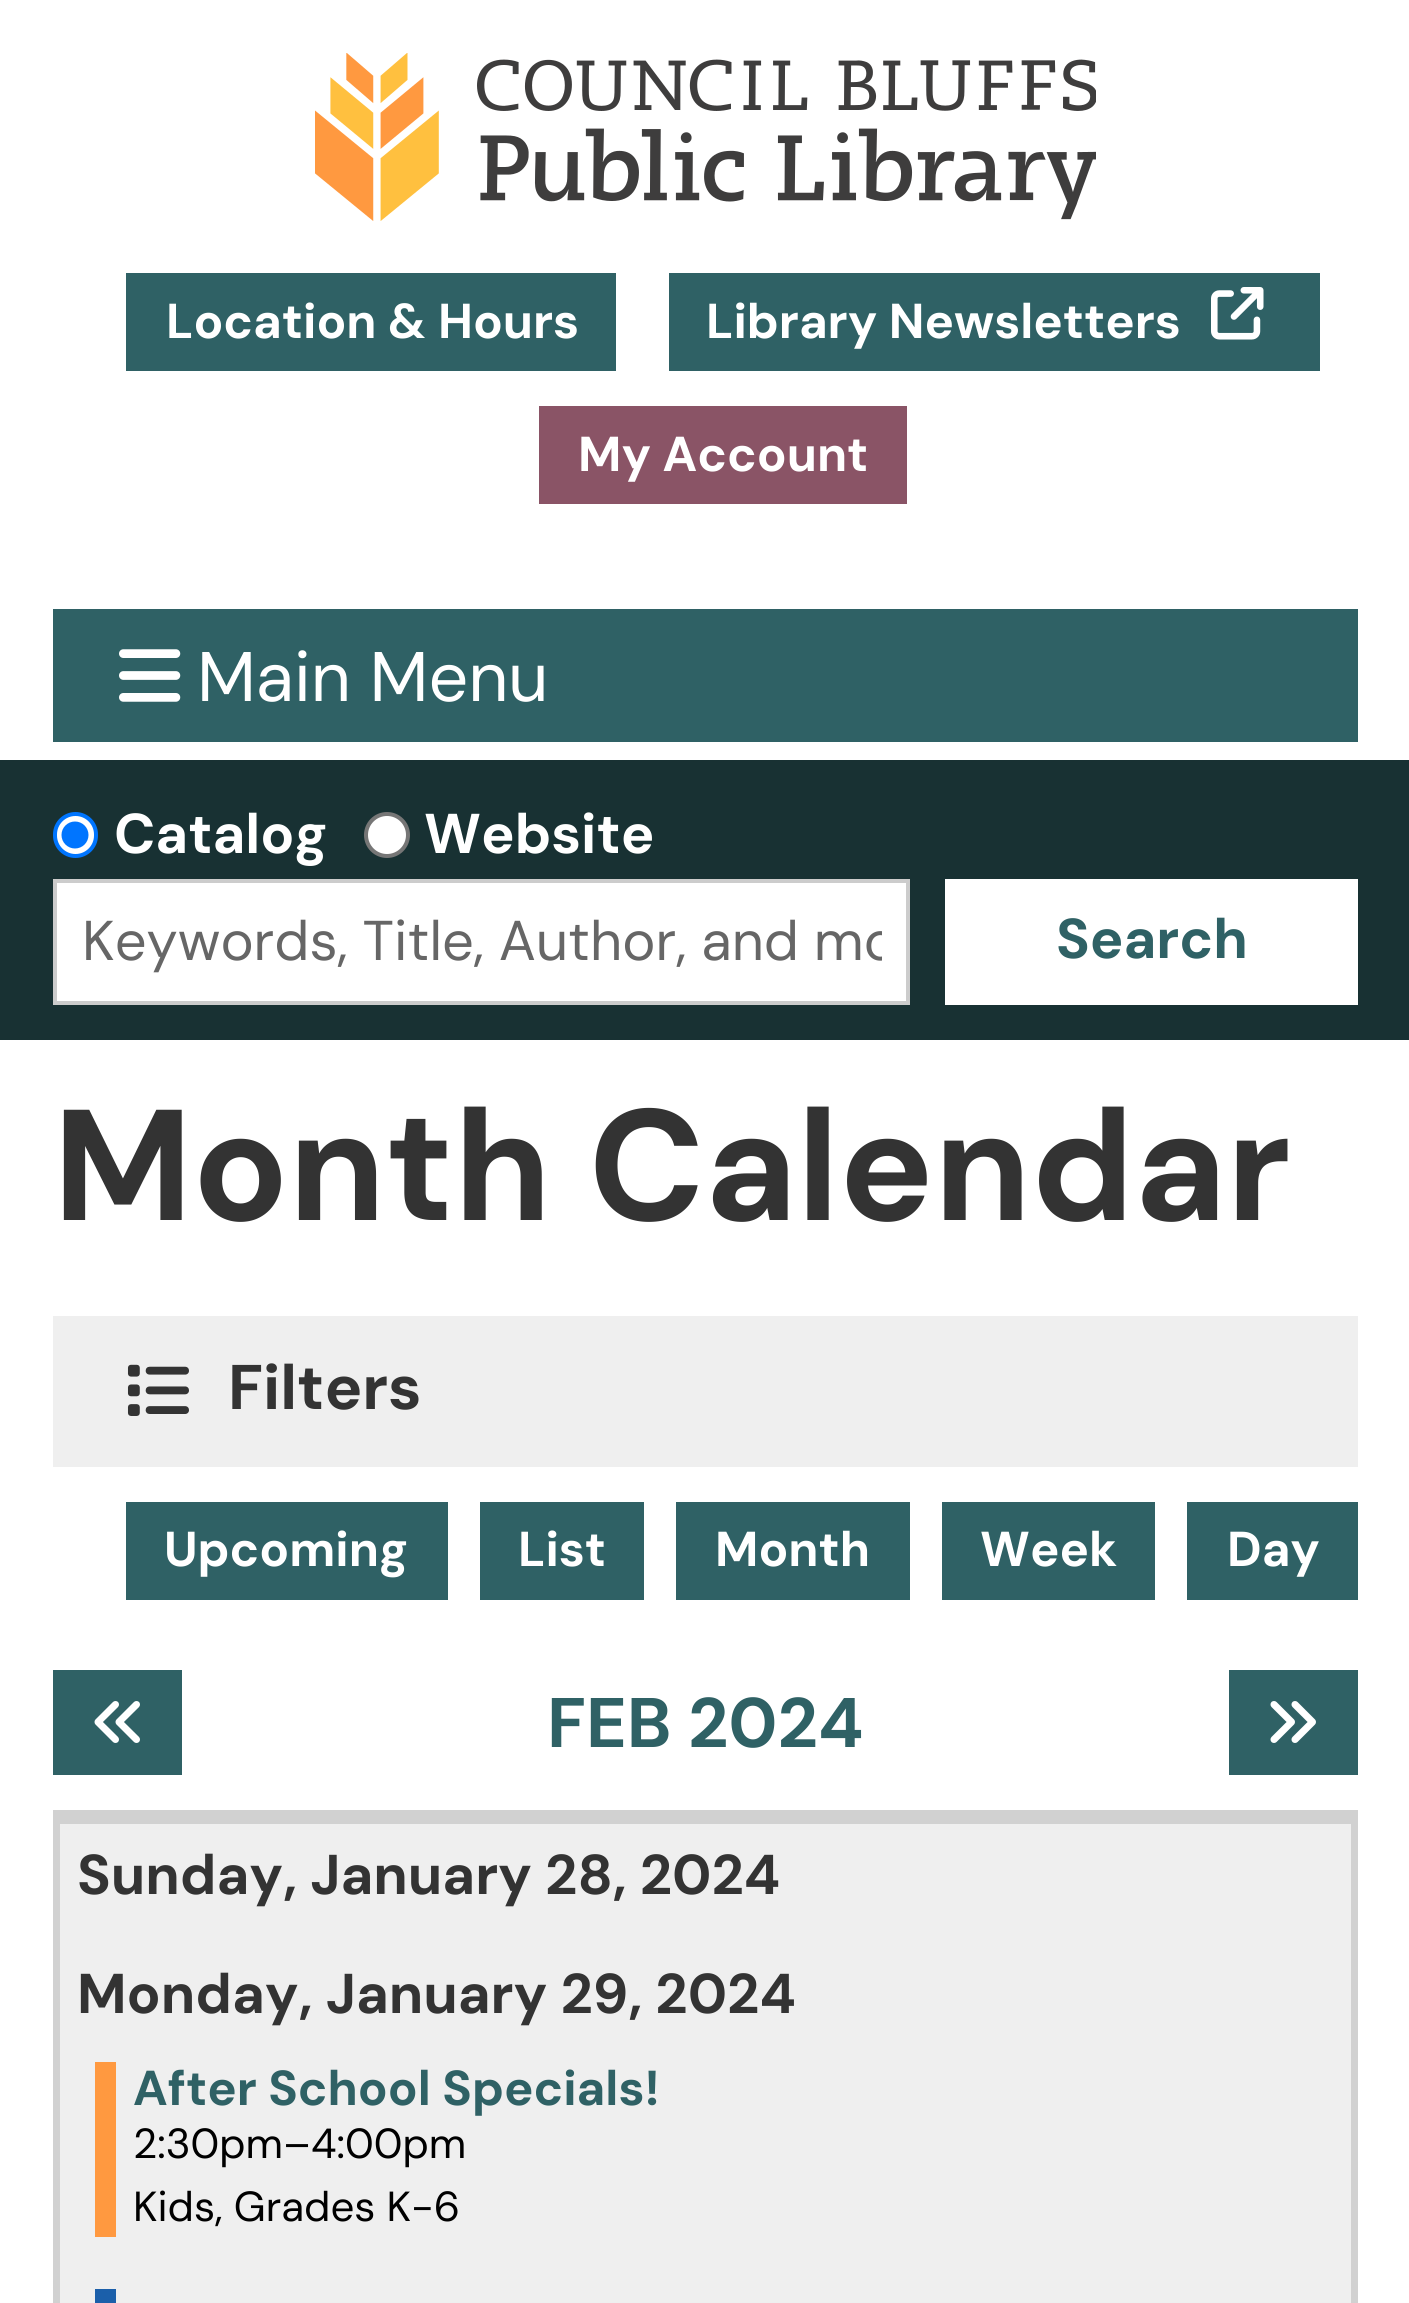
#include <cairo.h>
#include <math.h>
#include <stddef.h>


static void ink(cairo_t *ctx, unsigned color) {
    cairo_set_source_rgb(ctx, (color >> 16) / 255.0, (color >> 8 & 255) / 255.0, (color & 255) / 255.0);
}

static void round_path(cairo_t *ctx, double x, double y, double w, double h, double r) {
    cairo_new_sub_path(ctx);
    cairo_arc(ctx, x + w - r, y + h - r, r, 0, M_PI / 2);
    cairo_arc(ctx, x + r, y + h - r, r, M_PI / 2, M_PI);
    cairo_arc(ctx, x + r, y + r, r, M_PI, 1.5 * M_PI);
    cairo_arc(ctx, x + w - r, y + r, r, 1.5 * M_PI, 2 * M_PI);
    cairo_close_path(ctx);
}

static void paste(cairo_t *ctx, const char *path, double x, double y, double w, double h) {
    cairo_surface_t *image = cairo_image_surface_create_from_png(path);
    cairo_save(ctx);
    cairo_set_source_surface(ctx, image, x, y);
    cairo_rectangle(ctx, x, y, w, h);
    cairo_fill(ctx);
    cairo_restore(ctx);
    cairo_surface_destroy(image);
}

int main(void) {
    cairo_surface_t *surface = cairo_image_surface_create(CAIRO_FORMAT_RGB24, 1409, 2303);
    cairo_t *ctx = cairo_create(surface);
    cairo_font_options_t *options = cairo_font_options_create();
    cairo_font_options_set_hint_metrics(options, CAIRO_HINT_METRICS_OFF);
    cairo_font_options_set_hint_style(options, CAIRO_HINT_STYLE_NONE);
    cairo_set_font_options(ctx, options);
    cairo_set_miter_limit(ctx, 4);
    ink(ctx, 0xFFFFFF);
    cairo_paint(ctx);
    paste(ctx, "media/1.png", 315, 53, 781, 168);
    ink(ctx, 0x2F6165);
    cairo_rectangle(ctx, 126, 273, 490, 98);
    cairo_fill(ctx);
    cairo_select_font_face(ctx, "DM Sans", CAIRO_FONT_SLANT_NORMAL, CAIRO_FONT_WEIGHT_BOLD);
    cairo_set_font_size(ctx, 49);
    ink(ctx, 0xFFFFFF);
    cairo_move_to(ctx, 166, 338);
    cairo_show_text(ctx, "Location & Hours");
    ink(ctx, 0x2F6165);
    cairo_rectangle(ctx, 669, 273, 651, 98);
    cairo_fill(ctx);
    ink(ctx, 0xFFFFFF);
    cairo_move_to(ctx, 706, 338);
    cairo_show_text(ctx, "Library Newsletters");
    paste(ctx, "media/2.png", 1211, 287, 53, 53);
    ink(ctx, 0x8A5466);
    cairo_rectangle(ctx, 539, 406, 368, 98);
    cairo_fill(ctx);
    ink(ctx, 0xFFFFFF);
    cairo_move_to(ctx, 578, 471);
    cairo_show_text(ctx, "My Account");
    ink(ctx, 0x2F6165);
    cairo_rectangle(ctx, 53, 609, 1305, 133);
    cairo_fill(ctx);
    paste(ctx, "media/3.png", 119, 649, 62, 53);
    cairo_select_font_face(ctx, "DM Sans", CAIRO_FONT_SLANT_NORMAL, CAIRO_FONT_WEIGHT_NORMAL);
    cairo_set_font_size(ctx, 70);
    ink(ctx, 0xFFFFFF);
    cairo_move_to(ctx, 197, 701);
    cairo_show_text(ctx, "Main Menu");
    ink(ctx, 0x183133);
    cairo_rectangle(ctx, 0, 760, 1409, 280);
    cairo_fill(ctx);
    ink(ctx, 0xFFFFFF);
    round_path(ctx, 55, 814, 41, 42, 20.5);
    cairo_fill_preserve(ctx);
    ink(ctx, 0x0075FF);
    cairo_set_line_width(ctx, 4);
    cairo_stroke(ctx);
    cairo_arc(ctx, 75, 835, 13.5, 0, 2 * M_PI);
    cairo_fill(ctx);
    cairo_select_font_face(ctx, "DM Sans", CAIRO_FONT_SLANT_NORMAL, CAIRO_FONT_WEIGHT_BOLD);
    cairo_set_font_size(ctx, 56);
    ink(ctx, 0xFFFFFF);
    cairo_move_to(ctx, 114, 853);
    cairo_show_text(ctx, "Catalog");
    cairo_new_path(ctx);
    cairo_arc(ctx, 387, 835, 21, 0, 2 * M_PI);
    cairo_fill_preserve(ctx);
    ink(ctx, 0x767676);
    cairo_stroke(ctx);
    ink(ctx, 0xFFFFFF);
    cairo_move_to(ctx, 424, 853);
    cairo_show_text(ctx, "Website");
    cairo_rectangle(ctx, 55, 881, 853, 122);
    cairo_fill_preserve(ctx);
    ink(ctx, 0xCCCCCC);
    cairo_stroke(ctx);
    cairo_save(ctx);
    cairo_rectangle(ctx, 84, 903, 798, 74);
    cairo_clip(ctx);
    cairo_select_font_face(ctx, "DM Sans", CAIRO_FONT_SLANT_NORMAL, CAIRO_FONT_WEIGHT_NORMAL);
    ink(ctx, 0x666666);
    cairo_move_to(ctx, 82, 960);
    cairo_show_text(ctx, "Keywords, Title, Author, and mo");
    cairo_restore(ctx);
    ink(ctx, 0xFFFFFF);
    cairo_rectangle(ctx, 945, 879, 413, 126);
    cairo_fill(ctx);
    ink(ctx, 0x2F6165);
    cairo_move_to(ctx, 1056, 958);
    cairo_show_text(ctx, "Search");
    cairo_set_font_size(ctx, 157.5);
    ink(ctx, 0x333333);
    cairo_move_to(ctx, 53, 1220);
    cairo_show_text(ctx, "Month Calendar");
    ink(ctx, 0xEFEFEF);
    cairo_rectangle(ctx, 53, 1316, 1305, 151);
    cairo_fill(ctx);
    paste(ctx, "media/4.png", 127, 1364, 62, 52);
    cairo_set_font_size(ctx, 63);
    ink(ctx, 0x333333);
    cairo_move_to(ctx, 228, 1409);
    cairo_show_text(ctx, "Filters");
    ink(ctx, 0x2F6165);
    cairo_rectangle(ctx, 126, 1502, 322, 98);
    cairo_fill(ctx);
    cairo_set_font_size(ctx, 49);
    ink(ctx, 0xFFFFFF);
    cairo_move_to(ctx, 164, 1566);
    cairo_show_text(ctx, "Upcoming");
    ink(ctx, 0x2F6165);
    cairo_rectangle(ctx, 480, 1502, 164, 98);
    cairo_fill(ctx);
    ink(ctx, 0xFFFFFF);
    cairo_move_to(ctx, 518, 1566);
    cairo_show_text(ctx, "List");
    ink(ctx, 0x2F6165);
    cairo_rectangle(ctx, 676, 1502, 234, 98);
    cairo_fill(ctx);
    ink(ctx, 0xFFFFFF);
    cairo_move_to(ctx, 715, 1566);
    cairo_show_text(ctx, "Month");
    ink(ctx, 0x2F6165);
    cairo_rectangle(ctx, 942, 1502, 213, 98);
    cairo_fill(ctx);
    ink(ctx, 0xFFFFFF);
    cairo_move_to(ctx, 980, 1566);
    cairo_show_text(ctx, "Week");
    ink(ctx, 0x2F6165);
    cairo_rectangle(ctx, 1187, 1502, 171, 98);
    cairo_fill(ctx);
    ink(ctx, 0xFFFFFF);
    cairo_move_to(ctx, 1227, 1566);
    cairo_show_text(ctx, "Day");
    ink(ctx, 0x2F6165);
    cairo_rectangle(ctx, 53, 1670, 129, 105);
    cairo_fill(ctx);
    paste(ctx, "media/5.png", 94, 1701, 46, 42);
    cairo_set_font_size(ctx, 70);
    cairo_move_to(ctx, 547, 1747);
    cairo_show_text(ctx, "FEB 2024");
    cairo_rectangle(ctx, 1229, 1670, 129, 105);
    cairo_fill(ctx);
    paste(ctx, "media/6.png", 1270, 1701, 46, 42);
    cairo_rectangle(ctx, 56.5, 1813.5, 1298, 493);
    ink(ctx, 0xD1D1D1);
    cairo_set_line_width(ctx, 7);
    cairo_stroke(ctx);
    cairo_rectangle(ctx, 60, 1817, 1291, 7);
    cairo_fill(ctx);
    ink(ctx, 0xEFEFEF);
    cairo_rectangle(ctx, 60, 1824, 1291, 479);
    cairo_fill(ctx);
    cairo_set_font_size(ctx, 56);
    ink(ctx, 0x333333);
    cairo_move_to(ctx, 77, 1894);
    cairo_show_text(ctx, "Sunday, January 28, 2024");
    cairo_move_to(ctx, 77, 2013);
    cairo_show_text(ctx, "Monday, January 29, 2024");
    ink(ctx, 0xFF9940);
    cairo_rectangle(ctx, 95, 2062, 21, 175);
    cairo_fill(ctx);
    cairo_set_font_size(ctx, 49);
    ink(ctx, 0x2F6165);
    cairo_move_to(ctx, 133, 2105);
    cairo_show_text(ctx, "After School Specials!");
    cairo_select_font_face(ctx, "DM Sans", CAIRO_FONT_SLANT_NORMAL, CAIRO_FONT_WEIGHT_NORMAL);
    cairo_set_font_size(ctx, 42);
    ink(ctx, 0x000000);
    cairo_move_to(ctx, 133, 2158);
    cairo_show_text(ctx, "2:30pm–4:00pm");
    cairo_move_to(ctx, 133, 2221);
    cairo_show_text(ctx, "Kids, Grades K-6");
    ink(ctx, 0x1B5FAA);
    cairo_rectangle(ctx, 95, 2289, 21, 14);
    cairo_fill(ctx);
    cairo_surface_write_to_png(surface, "image.png");
    cairo_font_options_destroy(options);
    cairo_destroy(ctx);
    cairo_surface_destroy(surface);
    return 0;
}
